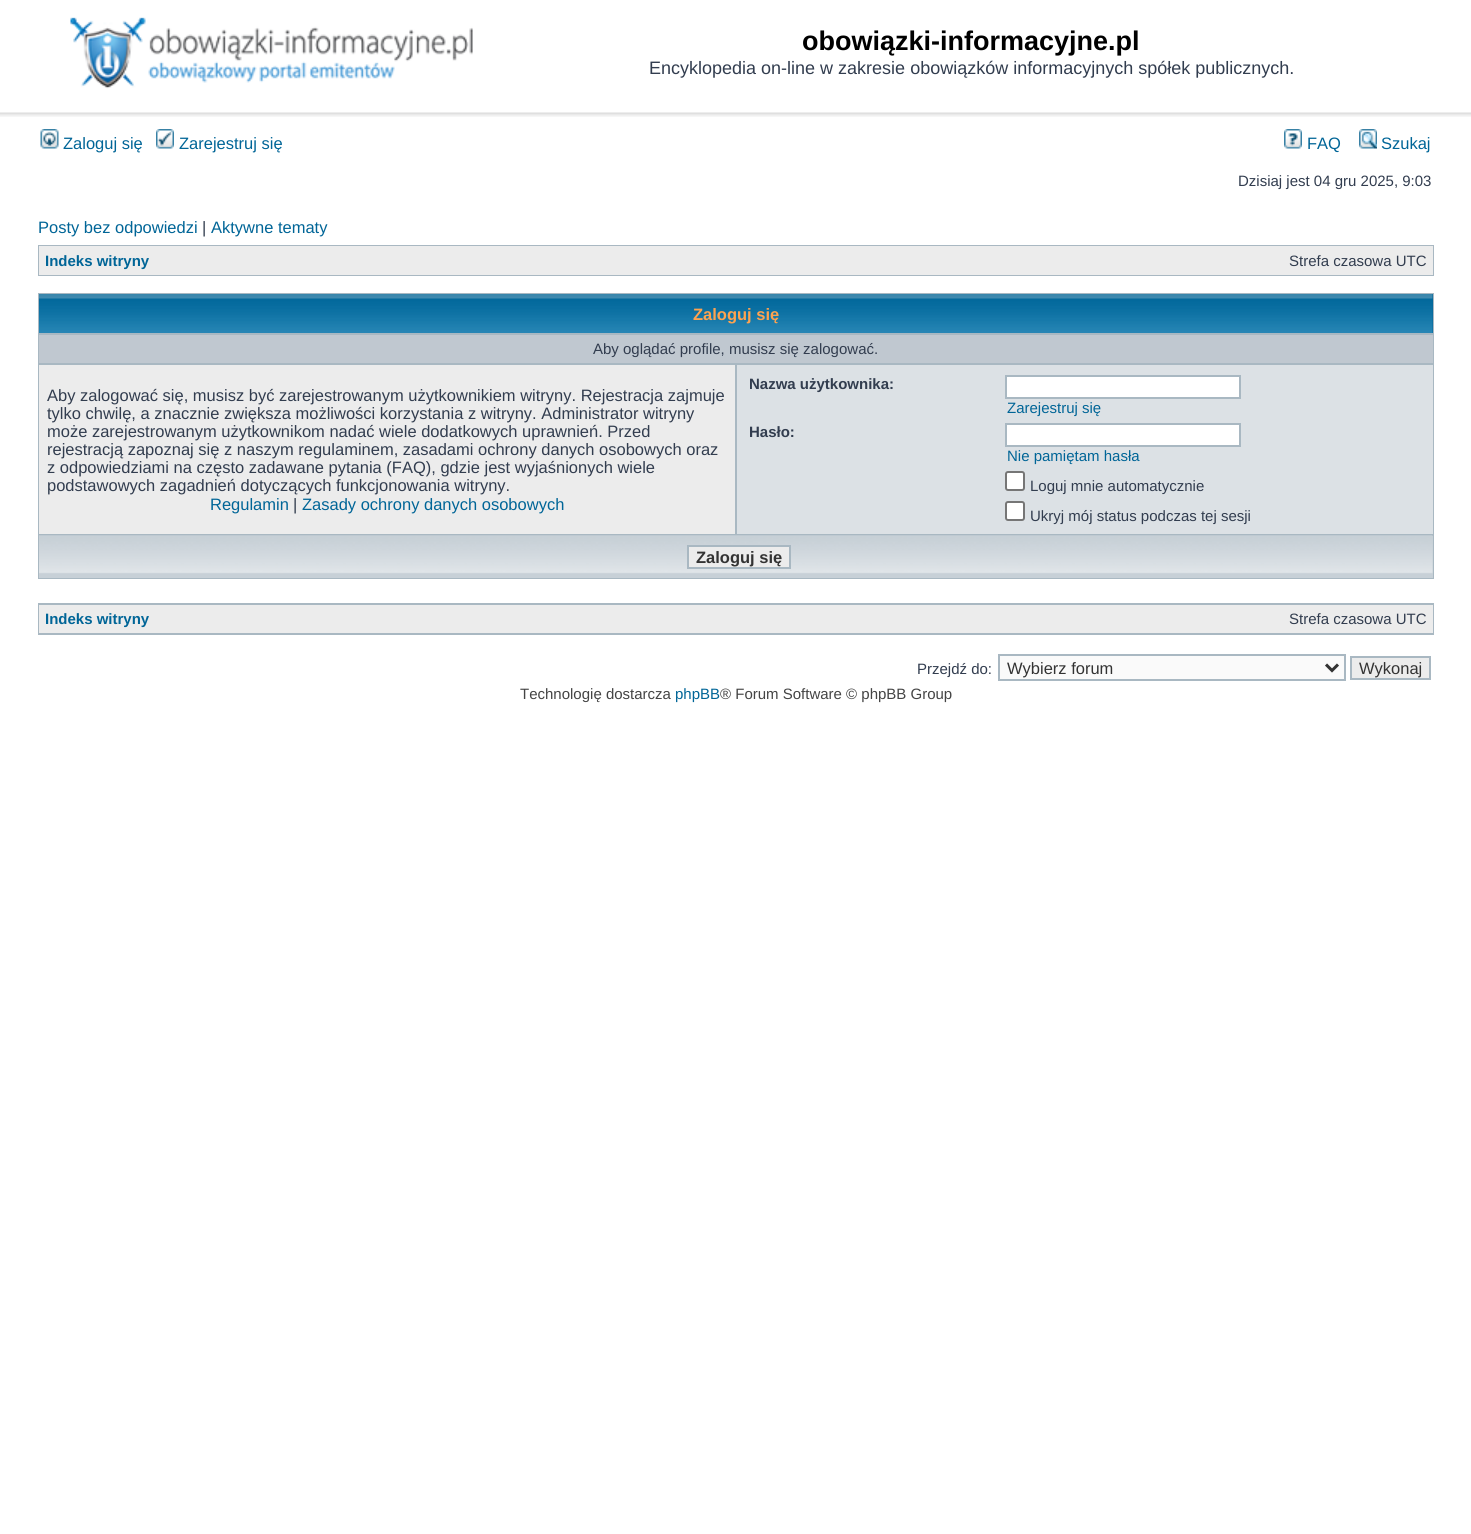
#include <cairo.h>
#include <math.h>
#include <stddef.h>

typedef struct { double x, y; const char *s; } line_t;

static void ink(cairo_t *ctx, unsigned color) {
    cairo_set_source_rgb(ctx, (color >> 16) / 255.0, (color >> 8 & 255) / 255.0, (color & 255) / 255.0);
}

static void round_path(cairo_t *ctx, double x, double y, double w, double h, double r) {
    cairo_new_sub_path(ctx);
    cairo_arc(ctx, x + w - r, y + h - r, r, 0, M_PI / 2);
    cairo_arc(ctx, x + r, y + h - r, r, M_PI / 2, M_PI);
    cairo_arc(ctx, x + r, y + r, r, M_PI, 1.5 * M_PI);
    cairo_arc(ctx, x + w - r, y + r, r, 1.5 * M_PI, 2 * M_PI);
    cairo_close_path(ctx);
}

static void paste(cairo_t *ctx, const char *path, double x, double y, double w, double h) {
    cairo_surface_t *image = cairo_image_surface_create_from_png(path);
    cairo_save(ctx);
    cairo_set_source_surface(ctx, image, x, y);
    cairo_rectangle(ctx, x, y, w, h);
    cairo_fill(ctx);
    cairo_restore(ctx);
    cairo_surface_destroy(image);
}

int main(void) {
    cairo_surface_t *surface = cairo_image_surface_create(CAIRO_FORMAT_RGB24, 1471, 1534);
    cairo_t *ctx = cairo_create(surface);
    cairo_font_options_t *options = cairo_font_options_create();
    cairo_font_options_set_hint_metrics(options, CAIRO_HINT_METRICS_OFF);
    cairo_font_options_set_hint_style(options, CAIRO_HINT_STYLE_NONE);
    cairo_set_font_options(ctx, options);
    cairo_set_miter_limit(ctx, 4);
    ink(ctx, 0xFFFFFF);
    cairo_paint(ctx);
    paste(ctx, "media/1.png", 0, 112, 1471, 5);
    paste(ctx, "media/2.png", 70, 17, 403, 72);
    cairo_select_font_face(ctx, "Liberation Sans", CAIRO_FONT_SLANT_NORMAL, CAIRO_FONT_WEIGHT_BOLD);
    cairo_set_font_size(ctx, 27);
    ink(ctx, 0x000000);
    cairo_move_to(ctx, 802, 50);
    cairo_show_text(ctx, "obowiązki-informacyjne.pl");
    cairo_select_font_face(ctx, "Liberation Sans", CAIRO_FONT_SLANT_NORMAL, CAIRO_FONT_WEIGHT_NORMAL);
    cairo_set_font_size(ctx, 18);
    ink(ctx, 0x323D4F);
    cairo_move_to(ctx, 649, 74);
    cairo_show_text(ctx, "Encyklopedia on-line w zakresie obowiązków informacyjnych spółek publicznych.");
    paste(ctx, "media/3.png", 40, 129, 19, 20);
    cairo_set_font_size(ctx, 16.5);
    ink(ctx, 0x006597);
    cairo_move_to(ctx, 63, 149);
    cairo_show_text(ctx, "Zaloguj się");
    paste(ctx, "media/4.png", 156, 129, 18, 20);
    cairo_move_to(ctx, 179, 149);
    cairo_show_text(ctx, "Zarejestruj się");
    paste(ctx, "media/5.png", 1284, 129, 18, 20);
    cairo_move_to(ctx, 1307, 149);
    cairo_show_text(ctx, "FAQ");
    paste(ctx, "media/6.png", 1359, 129, 18, 20);
    cairo_move_to(ctx, 1381, 149);
    cairo_show_text(ctx, "Szukaj");
    cairo_set_font_size(ctx, 15);
    ink(ctx, 0x323D4F);
    cairo_move_to(ctx, 1238, 186);
    cairo_show_text(ctx, "Dzisiaj jest 04 gru 2025, 9:03");
    cairo_set_font_size(ctx, 16.5);
    ink(ctx, 0x006597);
    cairo_move_to(ctx, 38, 233);
    cairo_show_text(ctx, "Posty bez odpowiedzi");
    ink(ctx, 0x323D4F);
    cairo_move_to(ctx, 202, 233);
    cairo_show_text(ctx, "|");
    ink(ctx, 0x006597);
    cairo_move_to(ctx, 211, 233);
    cairo_show_text(ctx, "Aktywne tematy");
    ink(ctx, 0xA9B8C2);
    cairo_rectangle(ctx, 38, 245, 1396, 31);
    cairo_fill(ctx);
    ink(ctx, 0xECECEC);
    cairo_rectangle(ctx, 39, 246, 1394, 29);
    cairo_fill(ctx);
    cairo_select_font_face(ctx, "Liberation Sans", CAIRO_FONT_SLANT_NORMAL, CAIRO_FONT_WEIGHT_BOLD);
    cairo_set_font_size(ctx, 15);
    ink(ctx, 0x006597);
    cairo_move_to(ctx, 45, 266);
    cairo_show_text(ctx, "Indeks witryny");
    cairo_select_font_face(ctx, "Liberation Sans", CAIRO_FONT_SLANT_NORMAL, CAIRO_FONT_WEIGHT_NORMAL);
    ink(ctx, 0x323D4F);
    cairo_move_to(ctx, 1289, 266);
    cairo_show_text(ctx, "Strefa czasowa UTC");
    ink(ctx, 0xA9B8C2);
    cairo_rectangle(ctx, 38, 293, 1396, 286);
    cairo_fill(ctx);
    ink(ctx, 0x006699);
    cairo_rectangle(ctx, 1432, 294, 1, 39);
    cairo_fill(ctx);
    paste(ctx, "media/7.png", 39, 294, 1394, 39);
    cairo_select_font_face(ctx, "Liberation Sans", CAIRO_FONT_SLANT_NORMAL, CAIRO_FONT_WEIGHT_BOLD);
    cairo_set_font_size(ctx, 16.5);
    ink(ctx, 0xFFA34F);
    cairo_move_to(ctx, 693, 320);
    cairo_show_text(ctx, "Zaloguj się");
    ink(ctx, 0xC0C8D0);
    cairo_rectangle(ctx, 39, 335, 1394, 28);
    cairo_fill(ctx);
    cairo_select_font_face(ctx, "Liberation Sans", CAIRO_FONT_SLANT_NORMAL, CAIRO_FONT_WEIGHT_NORMAL);
    cairo_set_font_size(ctx, 15);
    ink(ctx, 0x323D4F);
    cairo_move_to(ctx, 593, 354);
    cairo_show_text(ctx, "Aby oglądać profile, musisz się zalogować.");
    ink(ctx, 0xECECEC);
    cairo_rectangle(ctx, 39, 365, 696, 169);
    cairo_fill(ctx);
    cairo_set_font_size(ctx, 16.5);
    ink(ctx, 0x323D4F);
    {
        static const line_t items[] = {
            {47, 401, "Aby zalogować się, musisz być zarejestrowanym użytkownikiem witryny. Rejestracja zajmuje"},
            {47, 419, "tylko chwilę, a znacznie zwiększa możliwości korzystania z witryny. Administrator witryny"},
            {47, 437, "może zarejestrowanym użytkownikom nadać wiele dodatkowych uprawnień. Przed"},
            {47, 455, "rejestracją zapoznaj się z naszym regulaminem, zasadami ochrony danych osobowych oraz"},
            {47, 473, "z odpowiedziami na często zadawane pytania (FAQ), gdzie jest wyjaśnionych wiele"},
            {47, 491, "podstawowych zagadnień dotyczących funkcjonowania witryny."},
        };
        for (size_t i = 0; i < sizeof items / sizeof *items; i++) {
            cairo_move_to(ctx, items[i].x, items[i].y);
            cairo_show_text(ctx, items[i].s);
        }
    }
    ink(ctx, 0x006597);
    cairo_move_to(ctx, 210, 510);
    cairo_show_text(ctx, "Regulamin");
    ink(ctx, 0x323D4F);
    cairo_move_to(ctx, 293, 510);
    cairo_show_text(ctx, "|");
    ink(ctx, 0x006597);
    cairo_move_to(ctx, 302, 510);
    cairo_show_text(ctx, "Zasady ochrony danych osobowych");
    ink(ctx, 0xDCE1E5);
    cairo_rectangle(ctx, 737, 365, 696, 169);
    cairo_fill(ctx);
    cairo_select_font_face(ctx, "Liberation Sans", CAIRO_FONT_SLANT_NORMAL, CAIRO_FONT_WEIGHT_BOLD);
    cairo_set_font_size(ctx, 15);
    ink(ctx, 0x323D4F);
    cairo_move_to(ctx, 749, 389);
    cairo_show_text(ctx, "Nazwa użytkownika:");
    ink(ctx, 0xFFFFFF);
    cairo_rectangle(ctx, 1006, 376, 234, 22);
    cairo_fill_preserve(ctx);
    ink(ctx, 0xA9B8C2);
    cairo_stroke(ctx);
    cairo_select_font_face(ctx, "Liberation Sans", CAIRO_FONT_SLANT_NORMAL, CAIRO_FONT_WEIGHT_NORMAL);
    ink(ctx, 0x006597);
    cairo_move_to(ctx, 1007, 413);
    cairo_show_text(ctx, "Zarejestruj się");
    cairo_select_font_face(ctx, "Liberation Sans", CAIRO_FONT_SLANT_NORMAL, CAIRO_FONT_WEIGHT_BOLD);
    ink(ctx, 0x323D4F);
    cairo_move_to(ctx, 749, 437);
    cairo_show_text(ctx, "Hasło:");
    ink(ctx, 0xFFFFFF);
    cairo_rectangle(ctx, 1006, 424, 234, 22);
    cairo_fill_preserve(ctx);
    ink(ctx, 0xA9B8C2);
    cairo_stroke(ctx);
    cairo_select_font_face(ctx, "Liberation Sans", CAIRO_FONT_SLANT_NORMAL, CAIRO_FONT_WEIGHT_NORMAL);
    ink(ctx, 0x006597);
    cairo_move_to(ctx, 1007, 461);
    cairo_show_text(ctx, "Nie pamiętam hasła");
    ink(ctx, 0xFFFFFF);
    round_path(ctx, 1006, 472, 18, 18, 2);
    cairo_fill_preserve(ctx);
    ink(ctx, 0x767676);
    cairo_stroke(ctx);
    ink(ctx, 0x323D4F);
    cairo_move_to(ctx, 1030, 491);
    cairo_show_text(ctx, "Loguj mnie automatycznie");
    ink(ctx, 0xFFFFFF);
    round_path(ctx, 1006, 502, 18, 18, 2);
    cairo_fill_preserve(ctx);
    ink(ctx, 0x767676);
    cairo_stroke(ctx);
    ink(ctx, 0x323D4F);
    cairo_move_to(ctx, 1030, 521);
    cairo_show_text(ctx, "Ukryj mój status podczas tej sesji");
    ink(ctx, 0xC7D0D7);
    cairo_rectangle(ctx, 39, 536, 1394, 42);
    cairo_fill(ctx);
    paste(ctx, "media/8.png", 39, 535, 1394, 39);
    ink(ctx, 0xECECEC);
    cairo_rectangle(ctx, 688, 546, 102, 22);
    cairo_fill_preserve(ctx);
    ink(ctx, 0xA9B8C2);
    cairo_stroke(ctx);
    cairo_select_font_face(ctx, "Liberation Sans", CAIRO_FONT_SLANT_NORMAL, CAIRO_FONT_WEIGHT_BOLD);
    cairo_set_font_size(ctx, 16.5);
    ink(ctx, 0x333333);
    cairo_move_to(ctx, 696, 563);
    cairo_show_text(ctx, "Zaloguj się");
    ink(ctx, 0xA9B8C2);
    cairo_rectangle(ctx, 38, 603, 1396, 32);
    cairo_fill(ctx);
    ink(ctx, 0xECECEC);
    cairo_rectangle(ctx, 39, 605, 1394, 28);
    cairo_fill(ctx);
    cairo_set_font_size(ctx, 15);
    ink(ctx, 0x006597);
    cairo_move_to(ctx, 45, 624);
    cairo_show_text(ctx, "Indeks witryny");
    cairo_select_font_face(ctx, "Liberation Sans", CAIRO_FONT_SLANT_NORMAL, CAIRO_FONT_WEIGHT_NORMAL);
    ink(ctx, 0x323D4F);
    cairo_move_to(ctx, 1289, 624);
    cairo_show_text(ctx, "Strefa czasowa UTC");
    cairo_move_to(ctx, 917, 674);
    cairo_show_text(ctx, "Przejdź do:");
    ink(ctx, 0xFAFAFA);
    cairo_rectangle(ctx, 999, 655, 346, 25);
    cairo_fill_preserve(ctx);
    ink(ctx, 0xA9B8C2);
    cairo_stroke(ctx);
    cairo_new_path(ctx);
    cairo_move_to(ctx, 1326, 664.5);
    cairo_line_to(ctx, 1332, 670.5);
    cairo_line_to(ctx, 1338, 664.5);
    ink(ctx, 0x333333);
    cairo_set_line_width(ctx, 3);
    cairo_stroke(ctx);
    cairo_set_font_size(ctx, 16.5);
    cairo_move_to(ctx, 1007, 674);
    cairo_show_text(ctx, "Wybierz forum");
    ink(ctx, 0xECECEC);
    cairo_rectangle(ctx, 1351, 657, 79, 22);
    cairo_fill_preserve(ctx);
    ink(ctx, 0xA9B8C2);
    cairo_set_line_width(ctx, 2);
    cairo_stroke(ctx);
    ink(ctx, 0x333333);
    cairo_move_to(ctx, 1359, 674);
    cairo_show_text(ctx, "Wykonaj");
    cairo_set_font_size(ctx, 15);
    ink(ctx, 0x444444);
    cairo_move_to(ctx, 520, 699);
    cairo_show_text(ctx, "Technologię dostarcza");
    ink(ctx, 0x006597);
    cairo_move_to(ctx, 675, 699);
    cairo_show_text(ctx, "phpBB");
    ink(ctx, 0x444444);
    cairo_move_to(ctx, 720, 699);
    cairo_show_text(ctx, "® Forum Software © phpBB Group");
    cairo_surface_write_to_png(surface, "image.png");
    cairo_font_options_destroy(options);
    cairo_destroy(ctx);
    cairo_surface_destroy(surface);
    return 0;
}
